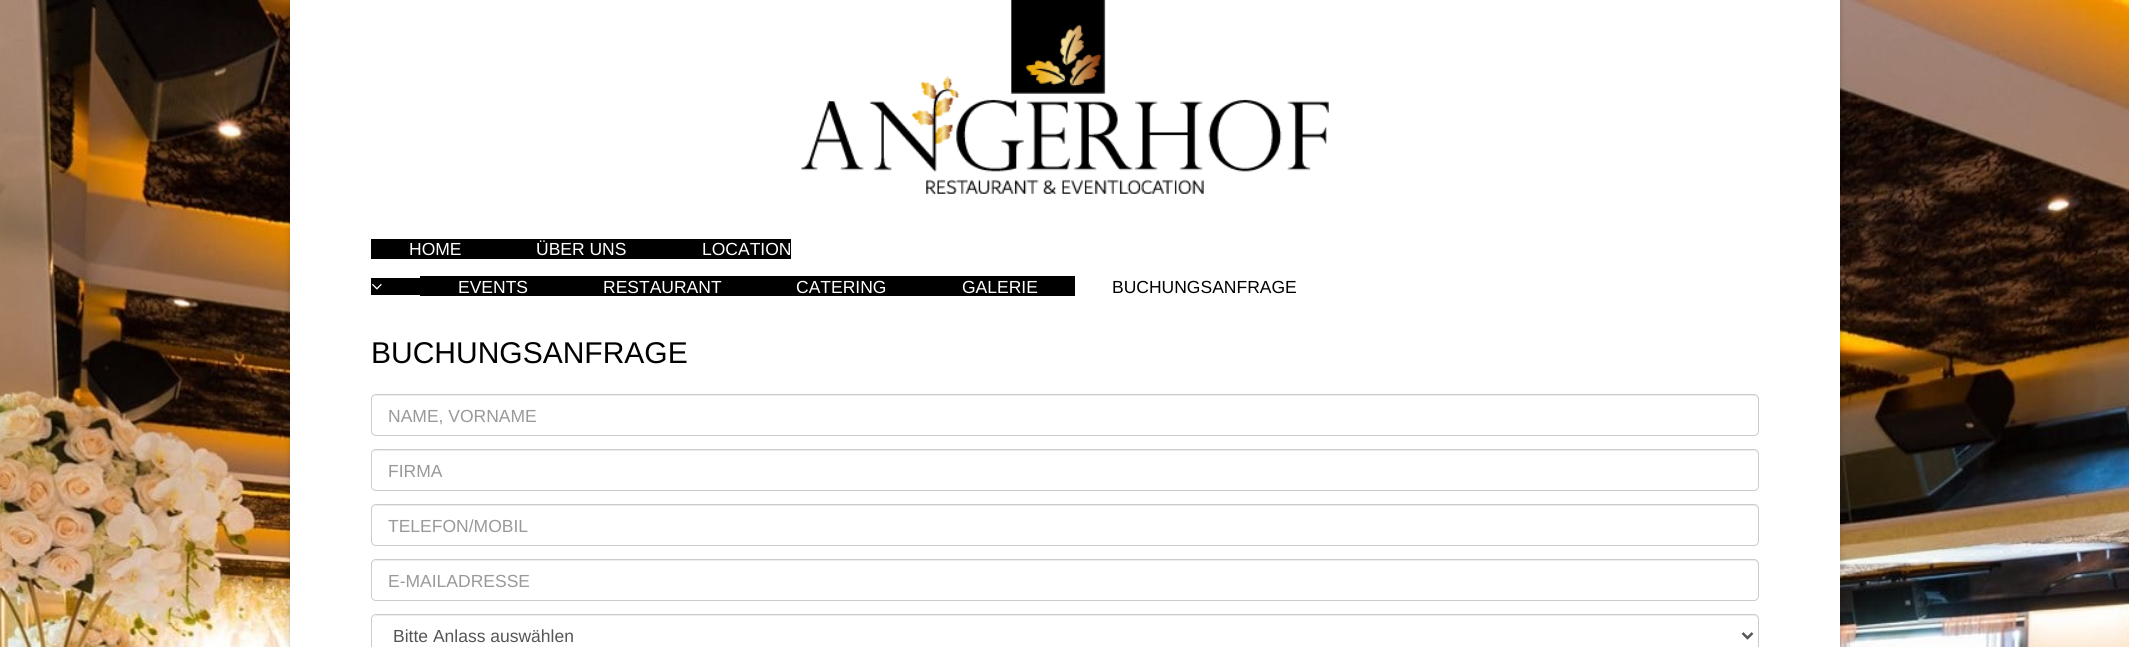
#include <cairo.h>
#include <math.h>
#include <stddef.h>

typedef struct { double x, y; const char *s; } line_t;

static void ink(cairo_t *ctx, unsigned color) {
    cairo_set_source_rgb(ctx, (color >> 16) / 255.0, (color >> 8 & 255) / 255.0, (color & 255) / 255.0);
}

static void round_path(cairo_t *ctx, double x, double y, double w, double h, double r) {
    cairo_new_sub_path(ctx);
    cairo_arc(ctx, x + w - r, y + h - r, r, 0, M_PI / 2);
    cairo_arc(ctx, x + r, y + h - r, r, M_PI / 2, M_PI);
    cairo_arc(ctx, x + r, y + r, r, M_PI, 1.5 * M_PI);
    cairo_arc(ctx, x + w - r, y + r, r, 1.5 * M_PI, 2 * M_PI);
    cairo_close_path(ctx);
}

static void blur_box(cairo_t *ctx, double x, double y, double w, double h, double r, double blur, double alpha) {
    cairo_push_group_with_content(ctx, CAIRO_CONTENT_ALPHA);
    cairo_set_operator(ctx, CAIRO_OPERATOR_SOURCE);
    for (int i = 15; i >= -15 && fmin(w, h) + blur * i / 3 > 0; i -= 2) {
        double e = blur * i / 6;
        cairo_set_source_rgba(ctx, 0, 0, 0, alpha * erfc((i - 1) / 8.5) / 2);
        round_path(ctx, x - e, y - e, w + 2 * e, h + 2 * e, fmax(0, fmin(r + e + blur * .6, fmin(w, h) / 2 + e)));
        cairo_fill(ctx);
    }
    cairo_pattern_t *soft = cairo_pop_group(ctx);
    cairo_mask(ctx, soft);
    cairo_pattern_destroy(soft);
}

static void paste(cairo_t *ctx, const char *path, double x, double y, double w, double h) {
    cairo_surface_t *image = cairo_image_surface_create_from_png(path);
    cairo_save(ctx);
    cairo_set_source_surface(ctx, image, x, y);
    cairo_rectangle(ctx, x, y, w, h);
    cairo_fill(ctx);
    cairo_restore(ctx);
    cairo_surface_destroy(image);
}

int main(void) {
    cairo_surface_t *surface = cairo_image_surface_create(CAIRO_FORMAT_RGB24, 2129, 647);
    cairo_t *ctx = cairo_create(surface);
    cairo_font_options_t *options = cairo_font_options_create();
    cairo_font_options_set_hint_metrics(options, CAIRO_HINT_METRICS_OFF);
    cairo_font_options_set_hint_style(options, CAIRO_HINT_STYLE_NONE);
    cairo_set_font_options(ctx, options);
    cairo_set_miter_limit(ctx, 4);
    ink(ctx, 0xFFFFFF);
    cairo_paint(ctx);
    paste(ctx, "media/1.png", 0, 0, 2129, 647);
    ink(ctx, 0x000000);
    blur_box(ctx, 290, 0, 1550, 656, 0, 3, 0.2);
    ink(ctx, 0xFFFFFF);
    cairo_rectangle(ctx, 290, 0, 1550, 647);
    cairo_fill(ctx);
    paste(ctx, "media/2.png", 801, 0, 528, 194);
    ink(ctx, 0x000000);
    cairo_rectangle(ctx, 371, 239, 420, 20);
    cairo_fill(ctx);
    cairo_select_font_face(ctx, "Liberation Sans", CAIRO_FONT_SLANT_NORMAL, CAIRO_FONT_WEIGHT_NORMAL);
    cairo_set_font_size(ctx, 17.5);
    ink(ctx, 0xFFFFFF);
    {
        static const line_t items[] = {
            {409, 255, "HOME"},
            {536, 255, "ÜBER UNS"},
            {702, 255, "LOCATION"},
        };
        for (size_t i = 0; i < sizeof items / sizeof *items; i++) {
            cairo_move_to(ctx, items[i].x, items[i].y);
            cairo_show_text(ctx, items[i].s);
        }
    }
    ink(ctx, 0x000000);
    cairo_rectangle(ctx, 371, 278, 49, 17);
    cairo_fill(ctx);
    paste(ctx, "media/3.png", 372, 283, 10, 7);
    cairo_rectangle(ctx, 420, 276, 655, 20);
    cairo_fill(ctx);
    ink(ctx, 0xFFFFFF);
    {
        static const line_t items[] = {
            {458, 293, "EVENTS"},
            {603, 293, "RESTAURANT"},
            {796, 293, "CATERING"},
            {962, 293, "GALERIE"},
        };
        for (size_t i = 0; i < sizeof items / sizeof *items; i++) {
            cairo_move_to(ctx, items[i].x, items[i].y);
            cairo_show_text(ctx, items[i].s);
        }
    }
    ink(ctx, 0x000000);
    cairo_move_to(ctx, 1112, 293);
    cairo_show_text(ctx, "BUCHUNGSANFRAGE");
    cairo_set_font_size(ctx, 30);
    cairo_move_to(ctx, 371, 363);
    cairo_show_text(ctx, "BUCHUNGSANFRAGE");
    ink(ctx, 0xECECEC);
    cairo_new_path(ctx);
    cairo_move_to(ctx, 376, 396);
    cairo_line_to(ctx, 1754, 396);
    cairo_curve_to(ctx, 1756, 396, 1758, 398, 1758, 400);
    cairo_line_to(ctx, 1758, 399);
    cairo_curve_to(ctx, 1758, 397, 1756, 395, 1754, 395);
    cairo_line_to(ctx, 377, 395);
    cairo_curve_to(ctx, 376, 395, 374, 396, 374, 397);
    cairo_close_path(ctx);
    cairo_fill(ctx);
    round_path(ctx, 371.5, 394.5, 1387, 41, 4.5);
    ink(ctx, 0xCCCCCC);
    cairo_set_line_width(ctx, 1);
    cairo_stroke(ctx);
    cairo_set_font_size(ctx, 17.5);
    ink(ctx, 0x999999);
    cairo_move_to(ctx, 388, 422);
    cairo_show_text(ctx, "NAME, VORNAME");
    ink(ctx, 0xECECEC);
    cairo_new_path(ctx);
    cairo_move_to(ctx, 376, 451);
    cairo_line_to(ctx, 1754, 451);
    cairo_curve_to(ctx, 1756, 451, 1758, 453, 1758, 455);
    cairo_line_to(ctx, 1758, 454);
    cairo_curve_to(ctx, 1758, 452, 1756, 450, 1754, 450);
    cairo_line_to(ctx, 377, 450);
    cairo_curve_to(ctx, 376, 450, 374, 451, 374, 452);
    cairo_close_path(ctx);
    cairo_fill(ctx);
    round_path(ctx, 371.5, 449.5, 1387, 41, 4.5);
    ink(ctx, 0xCCCCCC);
    cairo_stroke(ctx);
    ink(ctx, 0x999999);
    cairo_move_to(ctx, 388, 477);
    cairo_show_text(ctx, "FIRMA");
    ink(ctx, 0xECECEC);
    cairo_new_path(ctx);
    cairo_move_to(ctx, 376, 506);
    cairo_line_to(ctx, 1754, 506);
    cairo_curve_to(ctx, 1756, 506, 1758, 508, 1758, 510);
    cairo_line_to(ctx, 1758, 509);
    cairo_curve_to(ctx, 1758, 507, 1756, 505, 1754, 505);
    cairo_line_to(ctx, 377, 505);
    cairo_curve_to(ctx, 376, 505, 374, 506, 374, 507);
    cairo_close_path(ctx);
    cairo_fill(ctx);
    round_path(ctx, 371.5, 504.5, 1387, 41, 4.5);
    ink(ctx, 0xCCCCCC);
    cairo_stroke(ctx);
    ink(ctx, 0x999999);
    cairo_move_to(ctx, 388, 532);
    cairo_show_text(ctx, "TELEFON/MOBIL");
    ink(ctx, 0xECECEC);
    cairo_new_path(ctx);
    cairo_move_to(ctx, 376, 561);
    cairo_line_to(ctx, 1754, 561);
    cairo_curve_to(ctx, 1756, 561, 1758, 563, 1758, 565);
    cairo_line_to(ctx, 1758, 564);
    cairo_curve_to(ctx, 1758, 562, 1756, 560, 1754, 560);
    cairo_line_to(ctx, 377, 560);
    cairo_curve_to(ctx, 376, 560, 374, 561, 374, 562);
    cairo_close_path(ctx);
    cairo_fill(ctx);
    round_path(ctx, 371.5, 559.5, 1387, 41, 4.5);
    ink(ctx, 0xCCCCCC);
    cairo_stroke(ctx);
    ink(ctx, 0x999999);
    cairo_move_to(ctx, 388, 587);
    cairo_show_text(ctx, "E-MAILADRESSE");
    ink(ctx, 0xECECEC);
    cairo_new_path(ctx);
    cairo_move_to(ctx, 376, 616);
    cairo_line_to(ctx, 1754, 616);
    cairo_curve_to(ctx, 1756, 616, 1758, 618, 1758, 620);
    cairo_line_to(ctx, 1758, 619);
    cairo_curve_to(ctx, 1758, 617, 1756, 615, 1754, 615);
    cairo_line_to(ctx, 377, 615);
    cairo_curve_to(ctx, 376, 615, 374, 616, 374, 617);
    cairo_close_path(ctx);
    cairo_fill(ctx);
    round_path(ctx, 371.5, 614.5, 1387, 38, 4.5);
    ink(ctx, 0xCCCCCC);
    cairo_stroke(ctx);
    cairo_new_path(ctx);
    cairo_move_to(ctx, 1742.5, 633);
    cairo_line_to(ctx, 1747.5, 638);
    cairo_line_to(ctx, 1752.5, 633);
    ink(ctx, 0x555555);
    cairo_set_line_width(ctx, 2.5);
    cairo_stroke(ctx);
    cairo_move_to(ctx, 393, 642);
    cairo_show_text(ctx, "Bitte Anlass auswählen");
    cairo_surface_write_to_png(surface, "image.png");
    cairo_font_options_destroy(options);
    cairo_destroy(ctx);
    cairo_surface_destroy(surface);
    return 0;
}
